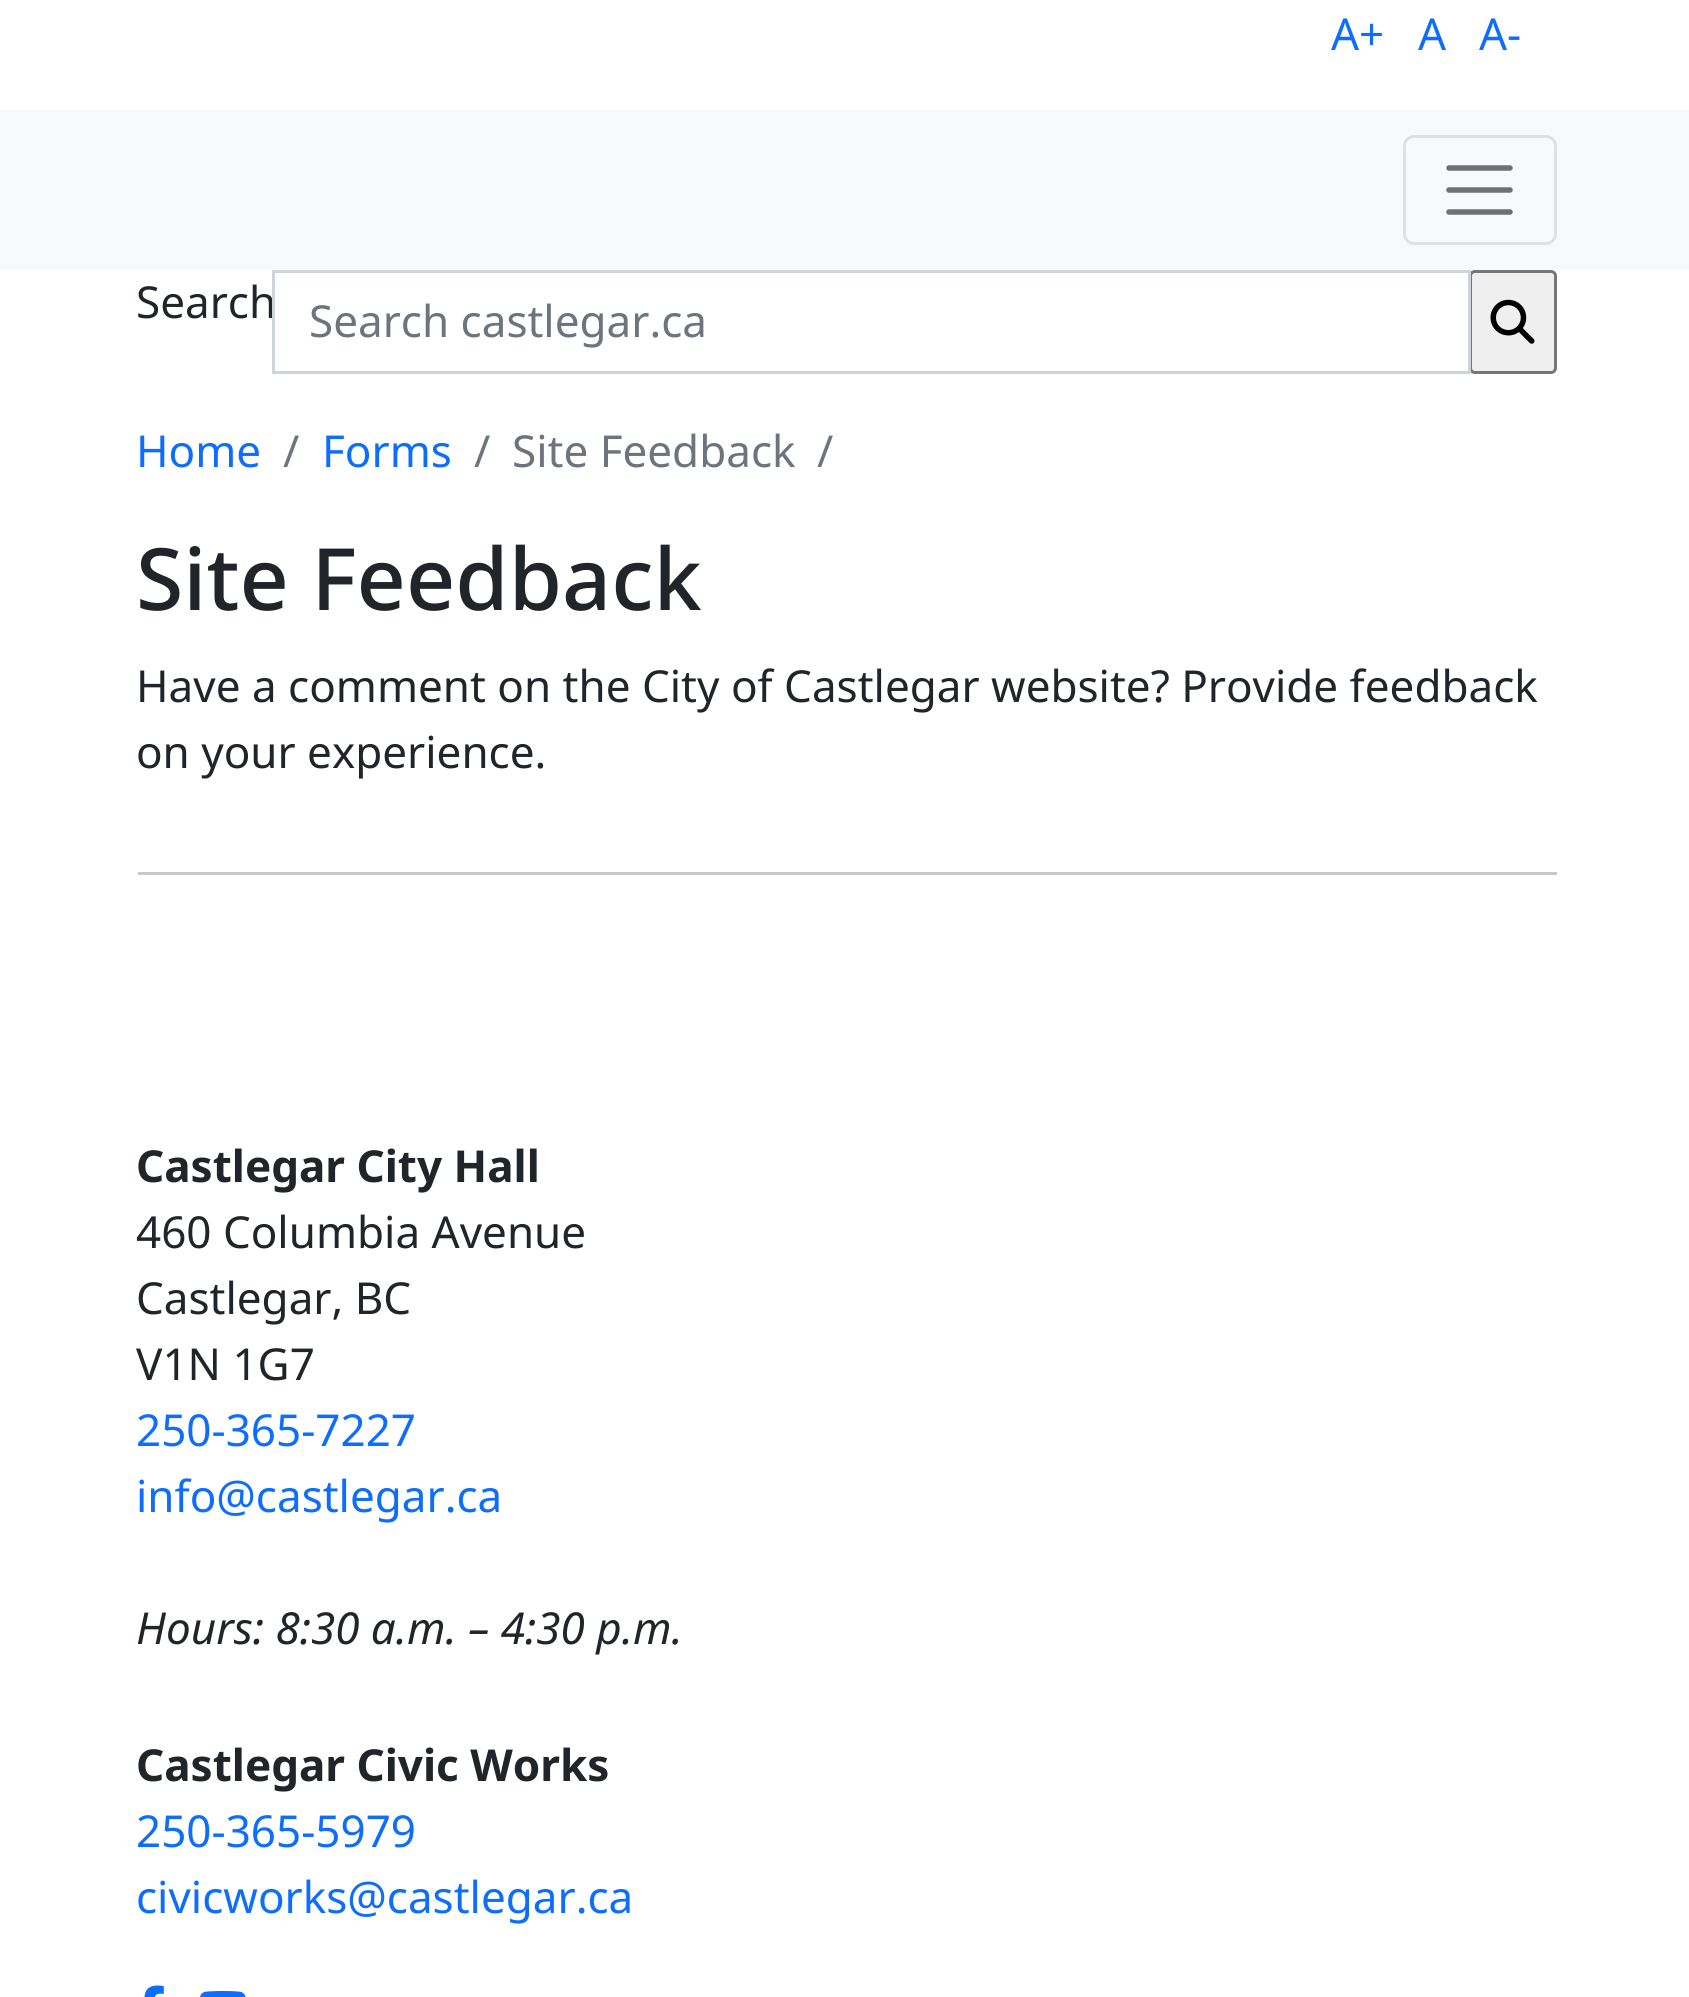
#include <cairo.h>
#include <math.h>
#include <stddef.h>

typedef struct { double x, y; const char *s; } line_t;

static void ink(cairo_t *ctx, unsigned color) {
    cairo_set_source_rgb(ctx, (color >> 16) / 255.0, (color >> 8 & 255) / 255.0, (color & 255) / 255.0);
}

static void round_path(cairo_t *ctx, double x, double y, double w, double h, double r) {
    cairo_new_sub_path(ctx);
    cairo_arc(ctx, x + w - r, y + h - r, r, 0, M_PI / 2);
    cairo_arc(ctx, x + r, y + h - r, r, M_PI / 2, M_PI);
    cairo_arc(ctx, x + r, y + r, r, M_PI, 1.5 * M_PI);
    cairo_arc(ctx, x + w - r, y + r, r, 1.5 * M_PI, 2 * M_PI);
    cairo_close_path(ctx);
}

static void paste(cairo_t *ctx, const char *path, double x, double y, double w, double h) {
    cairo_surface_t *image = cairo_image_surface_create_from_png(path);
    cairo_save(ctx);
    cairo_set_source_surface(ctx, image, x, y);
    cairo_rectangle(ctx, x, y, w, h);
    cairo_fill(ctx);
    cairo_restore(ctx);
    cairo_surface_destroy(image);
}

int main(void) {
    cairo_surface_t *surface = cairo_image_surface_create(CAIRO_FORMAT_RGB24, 1689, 1997);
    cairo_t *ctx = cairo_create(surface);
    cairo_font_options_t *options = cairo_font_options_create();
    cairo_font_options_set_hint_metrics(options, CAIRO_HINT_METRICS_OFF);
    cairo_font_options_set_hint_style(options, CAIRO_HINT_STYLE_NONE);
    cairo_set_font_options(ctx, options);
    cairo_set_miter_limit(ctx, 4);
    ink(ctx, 0xFFFFFF);
    cairo_paint(ctx);
    cairo_select_font_face(ctx, "Noto Sans", CAIRO_FONT_SLANT_NORMAL, CAIRO_FONT_WEIGHT_NORMAL);
    cairo_set_font_size(ctx, 44);
    ink(ctx, 0x0D6EFD);
    {
        static const line_t items[] = {
            {1331, 50, "A+"},
            {1418, 50, "A"},
            {1479, 50, "A-"},
        };
        for (size_t i = 0; i < sizeof items / sizeof *items; i++) {
            cairo_move_to(ctx, items[i].x, items[i].y);
            cairo_show_text(ctx, items[i].s);
        }
    }
    ink(ctx, 0xF8F9FA);
    cairo_rectangle(ctx, 0, 110, 1689, 160);
    cairo_fill(ctx);
    round_path(ctx, 1404.5, 136.5, 151, 107, 9.5);
    ink(ctx, 0xDFE0E1);
    cairo_set_line_width(ctx, 3);
    cairo_stroke(ctx);
    cairo_new_path(ctx);
    cairo_move_to(ctx, 1449, 168);
    cairo_line_to(ctx, 1510, 168);
    cairo_move_to(ctx, 1449, 190);
    cairo_line_to(ctx, 1510, 190);
    cairo_move_to(ctx, 1449, 212);
    cairo_line_to(ctx, 1510, 212);
    ink(ctx, 0x707071);
    cairo_set_line_width(ctx, 5.5);
    cairo_set_line_cap(ctx, CAIRO_LINE_CAP_ROUND);
    cairo_stroke(ctx);
    ink(ctx, 0x212529);
    cairo_move_to(ctx, 136, 318);
    cairo_show_text(ctx, "Search");
    ink(ctx, 0xEFEFEF);
    round_path(ctx, 1470.5, 271.5, 85, 101, 4.5);
    cairo_fill_preserve(ctx);
    ink(ctx, 0x767676);
    cairo_set_line_width(ctx, 3);
    cairo_set_line_cap(ctx, CAIRO_LINE_CAP_BUTT);
    cairo_stroke(ctx);
    cairo_rectangle(ctx, 273.5, 271.5, 1196, 101);
    ink(ctx, 0xCED4DA);
    cairo_stroke(ctx);
    ink(ctx, 0x6C757D);
    cairo_move_to(ctx, 309, 337);
    cairo_show_text(ctx, "Search castlegar.ca");
    paste(ctx, "media/1.png", 1490, 299, 45, 45);
    ink(ctx, 0x0D6EFD);
    cairo_move_to(ctx, 136, 467);
    cairo_show_text(ctx, "Home");
    ink(ctx, 0x6C757D);
    cairo_move_to(ctx, 283, 467);
    cairo_show_text(ctx, "/");
    ink(ctx, 0x0D6EFD);
    cairo_move_to(ctx, 322, 467);
    cairo_show_text(ctx, "Forms");
    ink(ctx, 0x6C757D);
    {
        static const line_t items[] = {
            {474, 467, "/"},
            {512, 467, "Site Feedback"},
            {817, 467, "/"},
        };
        for (size_t i = 0; i < sizeof items / sizeof *items; i++) {
            cairo_move_to(ctx, items[i].x, items[i].y);
            cairo_show_text(ctx, items[i].s);
        }
    }
    cairo_select_font_face(ctx, "Noto Sans Medium", CAIRO_FONT_SLANT_NORMAL, CAIRO_FONT_WEIGHT_NORMAL);
    cairo_set_font_size(ctx, 86);
    ink(ctx, 0x212529);
    cairo_move_to(ctx, 136, 610);
    cairo_show_text(ctx, "Site Feedback");
    cairo_select_font_face(ctx, "Noto Sans", CAIRO_FONT_SLANT_NORMAL, CAIRO_FONT_WEIGHT_NORMAL);
    cairo_set_font_size(ctx, 44);
    cairo_move_to(ctx, 136, 702);
    cairo_show_text(ctx, "Have a comment on the City of Castlegar website? Provide feedback");
    cairo_move_to(ctx, 136, 768);
    cairo_show_text(ctx, "on your experience.");
    ink(ctx, 0xC8C9CA);
    cairo_rectangle(ctx, 138, 872, 1419, 3);
    cairo_fill(ctx);
    cairo_select_font_face(ctx, "Noto Sans", CAIRO_FONT_SLANT_NORMAL, CAIRO_FONT_WEIGHT_BOLD);
    ink(ctx, 0x212529);
    cairo_move_to(ctx, 136, 1182);
    cairo_show_text(ctx, "Castlegar City Hall");
    cairo_select_font_face(ctx, "Noto Sans", CAIRO_FONT_SLANT_NORMAL, CAIRO_FONT_WEIGHT_NORMAL);
    {
        static const line_t items[] = {
            {136, 1248, "460 Columbia Avenue"},
            {136, 1314, "Castlegar, BC"},
            {136, 1380, "V1N 1G7"},
        };
        for (size_t i = 0; i < sizeof items / sizeof *items; i++) {
            cairo_move_to(ctx, items[i].x, items[i].y);
            cairo_show_text(ctx, items[i].s);
        }
    }
    ink(ctx, 0x0D6EFD);
    cairo_move_to(ctx, 136, 1446);
    cairo_show_text(ctx, "250-365-7227");
    cairo_move_to(ctx, 136, 1512);
    cairo_show_text(ctx, "info@castlegar.ca");
    cairo_select_font_face(ctx, "Noto Sans", CAIRO_FONT_SLANT_ITALIC, CAIRO_FONT_WEIGHT_NORMAL);
    ink(ctx, 0x212529);
    cairo_move_to(ctx, 136, 1644);
    cairo_show_text(ctx, "Hours: 8:30 a.m. – 4:30 p.m.");
    cairo_select_font_face(ctx, "Noto Sans", CAIRO_FONT_SLANT_NORMAL, CAIRO_FONT_WEIGHT_BOLD);
    cairo_move_to(ctx, 136, 1781);
    cairo_show_text(ctx, "Castlegar Civic Works");
    cairo_select_font_face(ctx, "Noto Sans", CAIRO_FONT_SLANT_NORMAL, CAIRO_FONT_WEIGHT_NORMAL);
    ink(ctx, 0x0D6EFD);
    cairo_move_to(ctx, 136, 1847);
    cairo_show_text(ctx, "250-365-5979");
    cairo_move_to(ctx, 136, 1913);
    cairo_show_text(ctx, "civicworks@castlegar.ca");
    paste(ctx, "media/2.png", 144, 1985, 20, 12);
    paste(ctx, "media/3.png", 200, 1991, 46, 6);
    cairo_surface_write_to_png(surface, "image.png");
    cairo_font_options_destroy(options);
    cairo_destroy(ctx);
    cairo_surface_destroy(surface);
    return 0;
}
